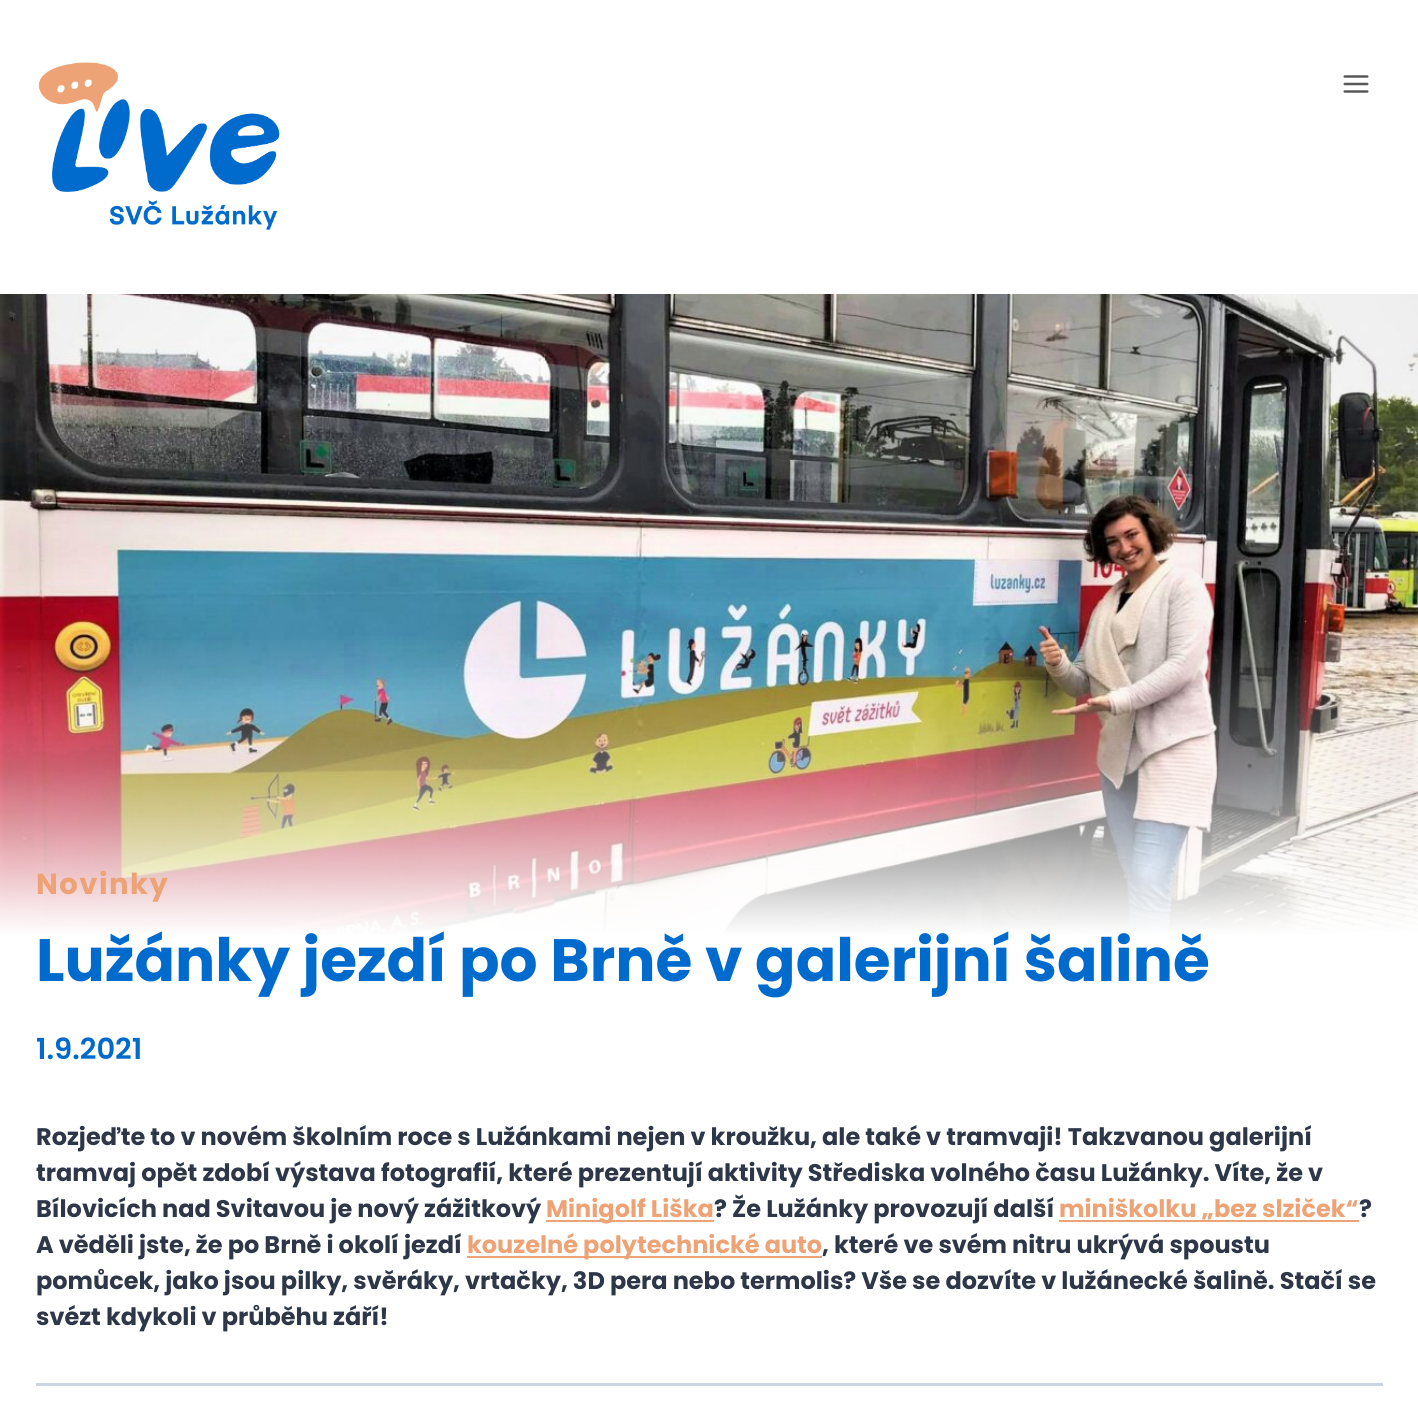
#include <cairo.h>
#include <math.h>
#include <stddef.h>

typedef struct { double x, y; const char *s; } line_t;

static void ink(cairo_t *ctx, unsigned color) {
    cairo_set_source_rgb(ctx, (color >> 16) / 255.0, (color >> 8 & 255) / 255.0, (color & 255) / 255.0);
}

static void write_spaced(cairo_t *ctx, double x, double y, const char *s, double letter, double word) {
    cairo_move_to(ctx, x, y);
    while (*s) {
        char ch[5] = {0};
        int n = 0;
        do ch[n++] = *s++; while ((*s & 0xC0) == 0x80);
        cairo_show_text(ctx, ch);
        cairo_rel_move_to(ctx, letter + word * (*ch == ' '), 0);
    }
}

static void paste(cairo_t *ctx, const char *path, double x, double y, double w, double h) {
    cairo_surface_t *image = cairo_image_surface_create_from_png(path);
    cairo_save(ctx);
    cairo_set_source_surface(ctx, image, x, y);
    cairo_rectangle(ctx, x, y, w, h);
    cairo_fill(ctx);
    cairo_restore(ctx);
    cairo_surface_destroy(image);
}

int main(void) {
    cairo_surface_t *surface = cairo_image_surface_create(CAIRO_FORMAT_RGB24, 1418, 1410);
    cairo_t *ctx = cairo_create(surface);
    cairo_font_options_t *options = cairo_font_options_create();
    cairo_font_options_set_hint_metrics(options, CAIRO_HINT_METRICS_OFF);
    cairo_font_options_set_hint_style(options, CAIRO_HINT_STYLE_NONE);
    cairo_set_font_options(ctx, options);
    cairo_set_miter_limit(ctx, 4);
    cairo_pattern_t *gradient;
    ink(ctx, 0xFFFFFF);
    cairo_paint(ctx);
    paste(ctx, "media/1.png", 38, 62, 242, 168);
    paste(ctx, "media/2.png", 1343, 75, 26, 18);
    paste(ctx, "media/3.png", 0, 294, 1418, 640);
    gradient = cairo_pattern_create_linear(710, 969, 710, 294);
    cairo_pattern_add_color_stop_rgba(gradient, 0.05, 1, 1, 1, 1);
    cairo_pattern_add_color_stop_rgba(gradient, 0.3, 1, 1, 1, 0.35);
    cairo_pattern_add_color_stop_rgba(gradient, 0.5, 1, 1, 1, 0);
    cairo_set_source(ctx, gradient);
    cairo_pattern_destroy(gradient);
    cairo_rectangle(ctx, 0, 640, 1418, 294);
    cairo_fill(ctx);
    cairo_select_font_face(ctx, "Poppins", CAIRO_FONT_SLANT_NORMAL, CAIRO_FONT_WEIGHT_BOLD);
    cairo_set_font_size(ctx, 29);
    ink(ctx, 0xEDA375);
    write_spaced(ctx, 36, 894, "Novinky", 1.5, 0);
    cairo_set_font_size(ctx, 59.75);
    ink(ctx, 0x006BCC);
    cairo_move_to(ctx, 36, 981);
    cairo_show_text(ctx, "Lužánky jezdí po Brně v galerijní šalině");
    cairo_select_font_face(ctx, "Poppins SemiBold", CAIRO_FONT_SLANT_NORMAL, CAIRO_FONT_WEIGHT_NORMAL);
    cairo_set_font_size(ctx, 29);
    cairo_move_to(ctx, 36, 1059);
    cairo_show_text(ctx, "1.9.2021");
    cairo_select_font_face(ctx, "Poppins", CAIRO_FONT_SLANT_NORMAL, CAIRO_FONT_WEIGHT_BOLD);
    cairo_set_font_size(ctx, 24);
    ink(ctx, 0x2D3748);
    {
        static const line_t items[] = {
            {36, 1145, "Rozjeďte to v novém školním roce s Lužánkami nejen v kroužku, ale také v tramvaji! Takzvanou galerijní"},
            {36, 1181, "tramvaj opět zdobí výstava fotografií, které prezentují aktivity Střediska volného času Lužánky. Víte, že v"},
            {36, 1217, "Bílovicích nad Svitavou je nový zážitkový"},
        };
        for (size_t i = 0; i < sizeof items / sizeof *items; i++) {
            cairo_move_to(ctx, items[i].x, items[i].y);
            cairo_show_text(ctx, items[i].s);
        }
    }
    ink(ctx, 0xEDA375);
    cairo_rectangle(ctx, 546, 1220, 168, 2);
    cairo_fill(ctx);
    cairo_move_to(ctx, 546, 1217);
    cairo_show_text(ctx, "Minigolf Liška");
    ink(ctx, 0x2D3748);
    cairo_move_to(ctx, 714, 1217);
    cairo_show_text(ctx, "? Že Lužánky provozují další");
    ink(ctx, 0xEDA375);
    cairo_move_to(ctx, 1059, 1217);
    cairo_show_text(ctx, "miniškolku „bez slziček“");
    cairo_rectangle(ctx, 1059, 1220, 300, 2);
    cairo_fill(ctx);
    ink(ctx, 0x2D3748);
    cairo_move_to(ctx, 1359, 1217);
    cairo_show_text(ctx, "?");
    cairo_move_to(ctx, 36, 1253);
    cairo_show_text(ctx, "A věděli jste, že po Brně i okolí jezdí");
    ink(ctx, 0xEDA375);
    cairo_rectangle(ctx, 467, 1256, 355, 2);
    cairo_fill(ctx);
    cairo_move_to(ctx, 467, 1253);
    cairo_show_text(ctx, "kouzelné polytechnické auto");
    ink(ctx, 0x2D3748);
    {
        static const line_t items[] = {
            {822, 1253, ", které ve svém nitru ukrývá spoustu"},
            {36, 1289, "pomůcek, jako jsou pilky, svěráky, vrtačky, 3D pera nebo termolis? Vše se dozvíte v lužánecké šalině. Stačí se"},
            {36, 1325, "svézt kdykoli v průběhu září!"},
        };
        for (size_t i = 0; i < sizeof items / sizeof *items; i++) {
            cairo_move_to(ctx, items[i].x, items[i].y);
            cairo_show_text(ctx, items[i].s);
        }
    }
    ink(ctx, 0xCBD5E0);
    cairo_rectangle(ctx, 36, 1383, 1347, 3);
    cairo_fill(ctx);
    cairo_surface_write_to_png(surface, "image.png");
    cairo_font_options_destroy(options);
    cairo_destroy(ctx);
    cairo_surface_destroy(surface);
    return 0;
}
